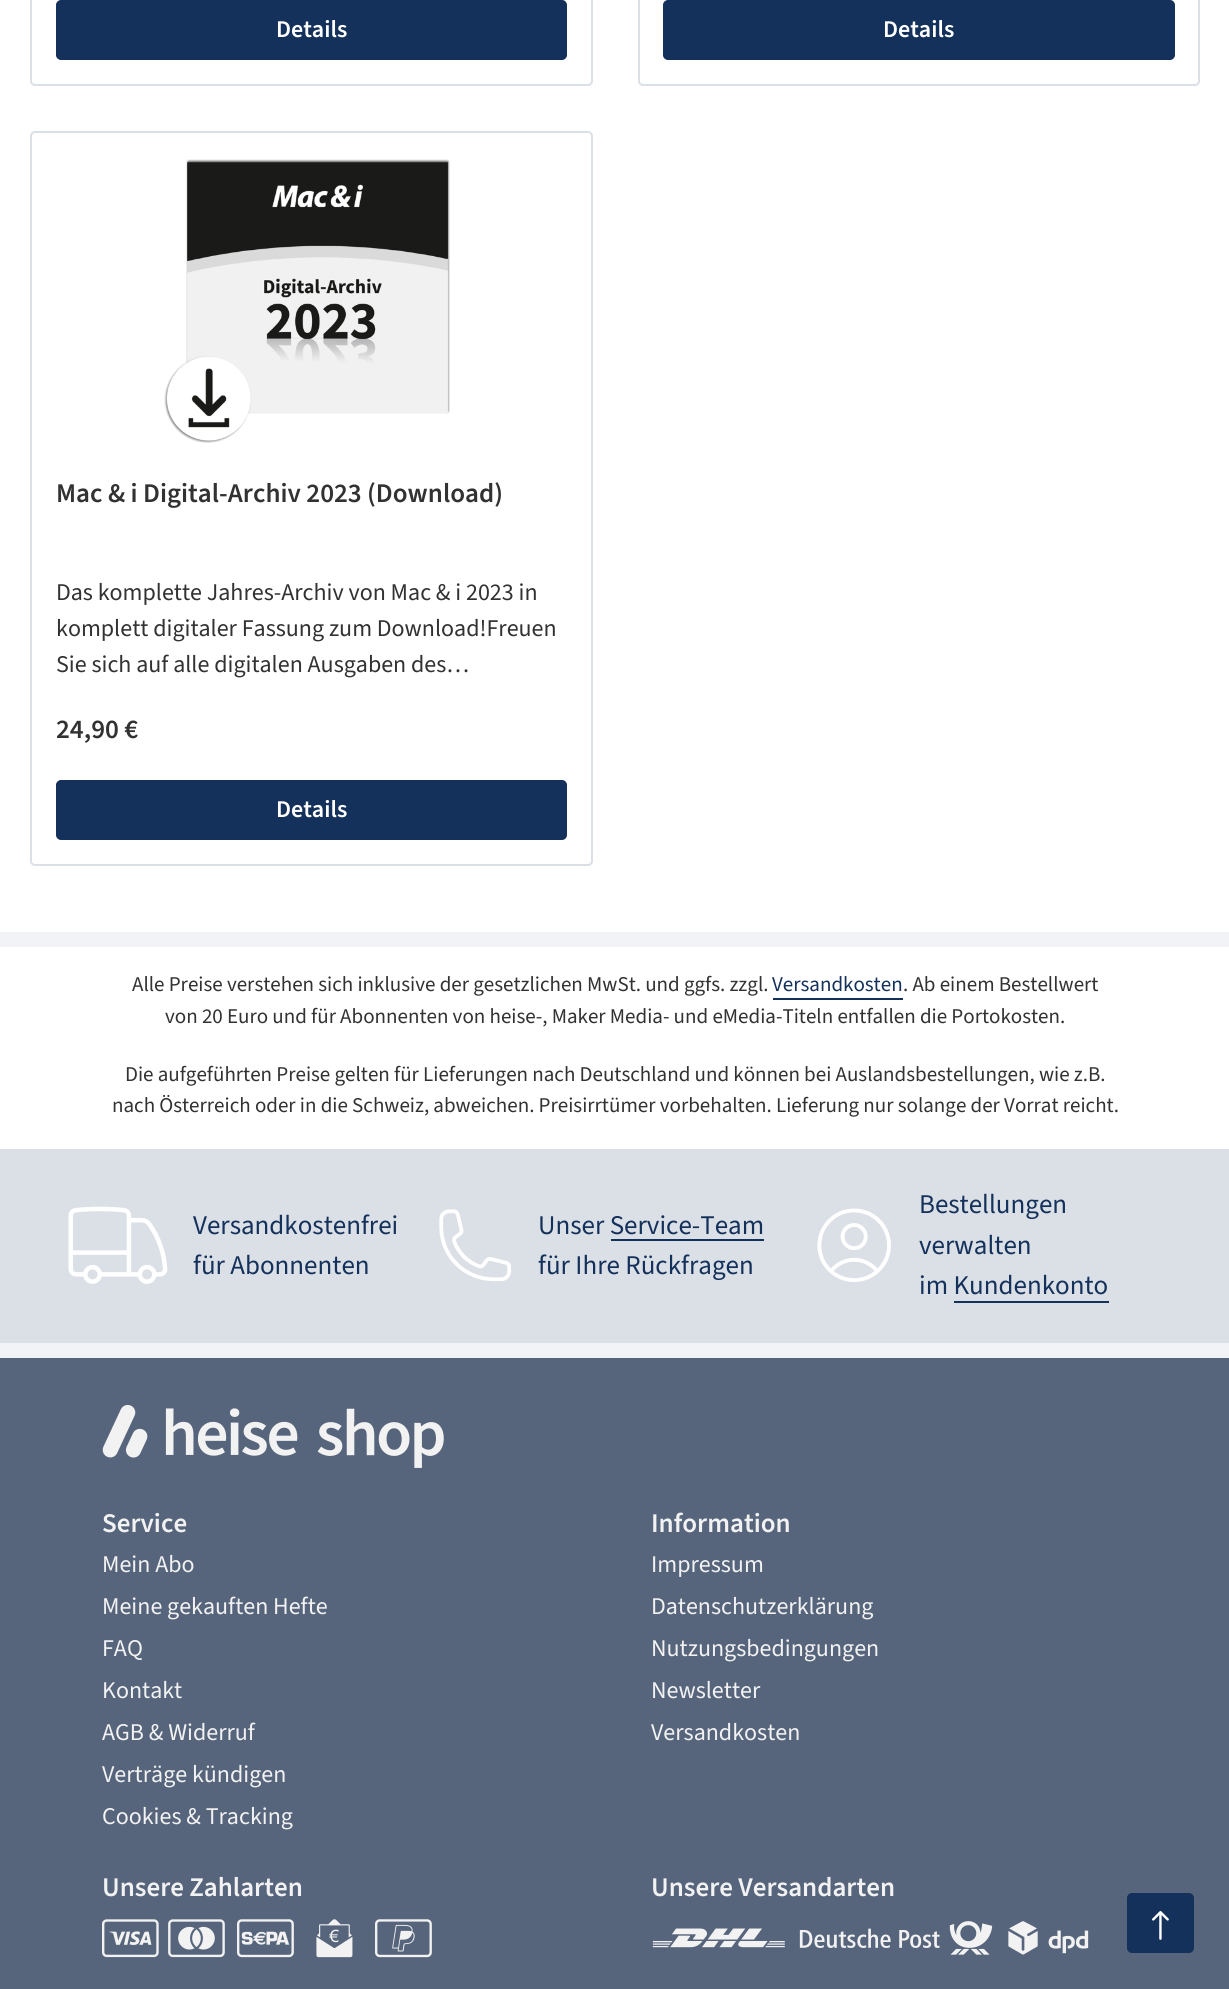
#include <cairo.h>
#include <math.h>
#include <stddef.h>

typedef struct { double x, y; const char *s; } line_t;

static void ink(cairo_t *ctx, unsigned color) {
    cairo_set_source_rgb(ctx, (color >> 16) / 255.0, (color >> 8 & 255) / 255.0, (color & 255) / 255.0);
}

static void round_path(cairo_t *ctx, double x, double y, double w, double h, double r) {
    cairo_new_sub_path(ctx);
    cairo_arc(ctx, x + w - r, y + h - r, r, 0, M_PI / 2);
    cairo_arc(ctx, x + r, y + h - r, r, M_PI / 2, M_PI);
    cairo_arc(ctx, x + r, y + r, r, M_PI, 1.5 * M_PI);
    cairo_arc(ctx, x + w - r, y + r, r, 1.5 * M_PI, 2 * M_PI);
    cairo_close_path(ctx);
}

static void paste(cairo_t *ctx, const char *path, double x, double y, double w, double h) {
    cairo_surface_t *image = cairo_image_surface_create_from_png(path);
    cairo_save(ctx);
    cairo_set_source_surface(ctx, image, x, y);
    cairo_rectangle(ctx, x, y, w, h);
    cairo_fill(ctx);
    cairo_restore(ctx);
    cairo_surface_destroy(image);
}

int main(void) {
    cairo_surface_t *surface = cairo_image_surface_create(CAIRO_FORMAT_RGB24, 1229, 1989);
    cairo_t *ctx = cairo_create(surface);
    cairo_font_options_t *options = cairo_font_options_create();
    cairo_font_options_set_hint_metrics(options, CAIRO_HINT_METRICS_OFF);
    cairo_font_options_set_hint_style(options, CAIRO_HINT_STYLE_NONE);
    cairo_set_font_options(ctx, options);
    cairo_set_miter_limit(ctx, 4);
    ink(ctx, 0xF2F3F6);
    cairo_paint(ctx);
    ink(ctx, 0xFFFFFF);
    cairo_rectangle(ctx, 0, 0, 1229, 932);
    cairo_fill(ctx);
    round_path(ctx, 31, -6, 561, 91, 4);
    ink(ctx, 0xDBDFE6);
    cairo_stroke(ctx);
    ink(ctx, 0x14315B);
    round_path(ctx, 57, 1, 509, 58, 4);
    cairo_fill_preserve(ctx);
    cairo_stroke(ctx);
    cairo_select_font_face(ctx, "Source Sans 3 SemiBold", CAIRO_FONT_SLANT_NORMAL, CAIRO_FONT_WEIGHT_NORMAL);
    cairo_set_font_size(ctx, 24);
    ink(ctx, 0xFFFFFF);
    cairo_move_to(ctx, 276, 37);
    cairo_show_text(ctx, "Details");
    round_path(ctx, 639, -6, 560, 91, 4);
    ink(ctx, 0xDBDFE6);
    cairo_stroke(ctx);
    ink(ctx, 0x14315B);
    round_path(ctx, 664, 1, 510, 58, 4);
    cairo_fill_preserve(ctx);
    cairo_stroke(ctx);
    ink(ctx, 0xFFFFFF);
    cairo_move_to(ctx, 883, 37);
    cairo_show_text(ctx, "Details");
    round_path(ctx, 31, 132, 561, 733, 4);
    ink(ctx, 0xDBDFE6);
    cairo_stroke(ctx);
    paste(ctx, "media/1.png", 164, 159, 286, 284);
    cairo_set_font_size(ctx, 27);
    ink(ctx, 0x323232);
    cairo_move_to(ctx, 56, 502);
    cairo_show_text(ctx, "Mac & i Digital-Archiv 2023 (Download)");
    cairo_select_font_face(ctx, "Source Sans 3", CAIRO_FONT_SLANT_NORMAL, CAIRO_FONT_WEIGHT_NORMAL);
    cairo_set_font_size(ctx, 24);
    {
        static const line_t items[] = {
            {56, 600, "Das komplette Jahres-Archiv von Mac & i 2023 in"},
            {56, 636, "komplett digitaler Fassung zum Download!Freuen"},
            {56, 672, "Sie sich auf alle digitalen Ausgaben des…"},
        };
        for (size_t i = 0; i < sizeof items / sizeof *items; i++) {
            cairo_move_to(ctx, items[i].x, items[i].y);
            cairo_show_text(ctx, items[i].s);
        }
    }
    cairo_select_font_face(ctx, "Source Sans 3 SemiBold", CAIRO_FONT_SLANT_NORMAL, CAIRO_FONT_WEIGHT_NORMAL);
    cairo_set_font_size(ctx, 27);
    cairo_move_to(ctx, 56, 738);
    cairo_show_text(ctx, "24,90 €");
    ink(ctx, 0x14315B);
    round_path(ctx, 57, 781, 509, 58, 4);
    cairo_fill_preserve(ctx);
    cairo_stroke(ctx);
    cairo_set_font_size(ctx, 24);
    ink(ctx, 0xFFFFFF);
    cairo_move_to(ctx, 276, 817);
    cairo_show_text(ctx, "Details");
    cairo_rectangle(ctx, 0, 947, 1229, 202);
    cairo_fill(ctx);
    cairo_select_font_face(ctx, "Source Sans 3", CAIRO_FONT_SLANT_NORMAL, CAIRO_FONT_WEIGHT_NORMAL);
    cairo_set_font_size(ctx, 21);
    ink(ctx, 0x323232);
    cairo_move_to(ctx, 132, 991);
    cairo_show_text(ctx, "Alle Preise verstehen sich inklusive der gesetzlichen MwSt. und ggfs. zzgl.");
    ink(ctx, 0x14315B);
    cairo_move_to(ctx, 772, 991);
    cairo_show_text(ctx, "Versandkosten");
    cairo_rectangle(ctx, 773, 998, 130, 2);
    cairo_fill(ctx);
    ink(ctx, 0x323232);
    {
        static const line_t items[] = {
            {903, 991, ". Ab einem Bestellwert"},
            {165, 1023, "von 20 Euro und für Abonnenten von heise-, Maker Media- und eMedia-Titeln entfallen die Portokosten."},
            {125, 1081, "Die aufgeführten Preise gelten für Lieferungen nach Deutschland und können bei Auslandsbestellungen, wie z.B."},
            {112, 1112, "nach Österreich oder in die Schweiz, abweichen. Preisirrtümer vorbehalten. Lieferung nur solange der Vorrat reicht."},
        };
        for (size_t i = 0; i < sizeof items / sizeof *items; i++) {
            cairo_move_to(ctx, items[i].x, items[i].y);
            cairo_show_text(ctx, items[i].s);
        }
    }
    ink(ctx, 0xDBDFE6);
    cairo_rectangle(ctx, 0, 1149, 1229, 194);
    cairo_fill(ctx);
    paste(ctx, "media/2.png", 68, 1206, 100, 78);
    cairo_set_font_size(ctx, 27);
    ink(ctx, 0x14315B);
    cairo_move_to(ctx, 193, 1234);
    cairo_show_text(ctx, "Versandkostenfrei");
    cairo_move_to(ctx, 193, 1274);
    cairo_show_text(ctx, "für Abonnenten");
    paste(ctx, "media/3.png", 439, 1209, 72, 73);
    cairo_move_to(ctx, 538, 1234);
    cairo_show_text(ctx, "Unser Service-Team");
    cairo_rectangle(ctx, 611, 1239, 153, 2);
    cairo_fill(ctx);
    cairo_move_to(ctx, 538, 1274);
    cairo_show_text(ctx, "für Ihre Rückfragen");
    paste(ctx, "media/4.png", 817, 1208, 74, 74);
    {
        static const line_t items[] = {
            {919, 1213, "Bestellungen"},
            {919, 1254, "verwalten"},
            {919, 1294, "im Kundenkonto"},
        };
        for (size_t i = 0; i < sizeof items / sizeof *items; i++) {
            cairo_move_to(ctx, items[i].x, items[i].y);
            cairo_show_text(ctx, items[i].s);
        }
    }
    cairo_rectangle(ctx, 954, 1301, 155, 2);
    cairo_fill(ctx);
    ink(ctx, 0x56657C);
    cairo_rectangle(ctx, 0, 1358, 1229, 631);
    cairo_fill(ctx);
    paste(ctx, "media/5.png", 102, 1404, 342, 64);
    cairo_select_font_face(ctx, "Source Sans 3 SemiBold", CAIRO_FONT_SLANT_NORMAL, CAIRO_FONT_WEIGHT_NORMAL);
    ink(ctx, 0xF2F2F2);
    cairo_move_to(ctx, 102, 1532);
    cairo_show_text(ctx, "Service");
    cairo_select_font_face(ctx, "Source Sans 3", CAIRO_FONT_SLANT_NORMAL, CAIRO_FONT_WEIGHT_NORMAL);
    cairo_set_font_size(ctx, 24);
    {
        static const line_t items[] = {
            {102, 1572, "Mein Abo"},
            {102, 1614, "Meine gekauften Hefte"},
            {102, 1656, "FAQ"},
            {102, 1698, "Kontakt"},
            {102, 1740, "AGB & Widerruf"},
            {102, 1782, "Verträge kündigen"},
            {102, 1824, "Cookies & Tracking"},
        };
        for (size_t i = 0; i < sizeof items / sizeof *items; i++) {
            cairo_move_to(ctx, items[i].x, items[i].y);
            cairo_show_text(ctx, items[i].s);
        }
    }
    cairo_select_font_face(ctx, "Source Sans 3 SemiBold", CAIRO_FONT_SLANT_NORMAL, CAIRO_FONT_WEIGHT_NORMAL);
    cairo_set_font_size(ctx, 27);
    cairo_move_to(ctx, 651, 1532);
    cairo_show_text(ctx, "Information");
    cairo_select_font_face(ctx, "Source Sans 3", CAIRO_FONT_SLANT_NORMAL, CAIRO_FONT_WEIGHT_NORMAL);
    cairo_set_font_size(ctx, 24);
    {
        static const line_t items[] = {
            {651, 1572, "Impressum"},
            {651, 1614, "Datenschutzerklärung"},
            {651, 1656, "Nutzungsbedingungen"},
            {651, 1698, "Newsletter"},
            {651, 1740, "Versandkosten"},
        };
        for (size_t i = 0; i < sizeof items / sizeof *items; i++) {
            cairo_move_to(ctx, items[i].x, items[i].y);
            cairo_show_text(ctx, items[i].s);
        }
    }
    cairo_select_font_face(ctx, "Source Sans 3 SemiBold", CAIRO_FONT_SLANT_NORMAL, CAIRO_FONT_WEIGHT_NORMAL);
    cairo_set_font_size(ctx, 27);
    cairo_move_to(ctx, 102, 1896);
    cairo_show_text(ctx, "Unsere Zahlarten");
    paste(ctx, "media/6.png", 102, 1919, 123, 39);
    paste(ctx, "media/7.png", 237, 1919, 57, 39);
    paste(ctx, "media/8.png", 316, 1919, 37, 39);
    paste(ctx, "media/9.png", 375, 1919, 57, 39);
    cairo_move_to(ctx, 651, 1896);
    cairo_show_text(ctx, "Unsere Versandarten");
    paste(ctx, "media/10.png", 652, 1928, 133, 20);
    paste(ctx, "media/11.png", 799, 1921, 194, 34);
    paste(ctx, "media/12.png", 1008, 1921, 81, 34);
    ink(ctx, 0x14315B);
    round_path(ctx, 1128, 1894, 65, 58, 4);
    cairo_fill_preserve(ctx);
    cairo_stroke(ctx);
    paste(ctx, "media/13.png", 1152, 1911, 17, 29);
    cairo_surface_write_to_png(surface, "image.png");
    cairo_font_options_destroy(options);
    cairo_destroy(ctx);
    cairo_surface_destroy(surface);
    return 0;
}
